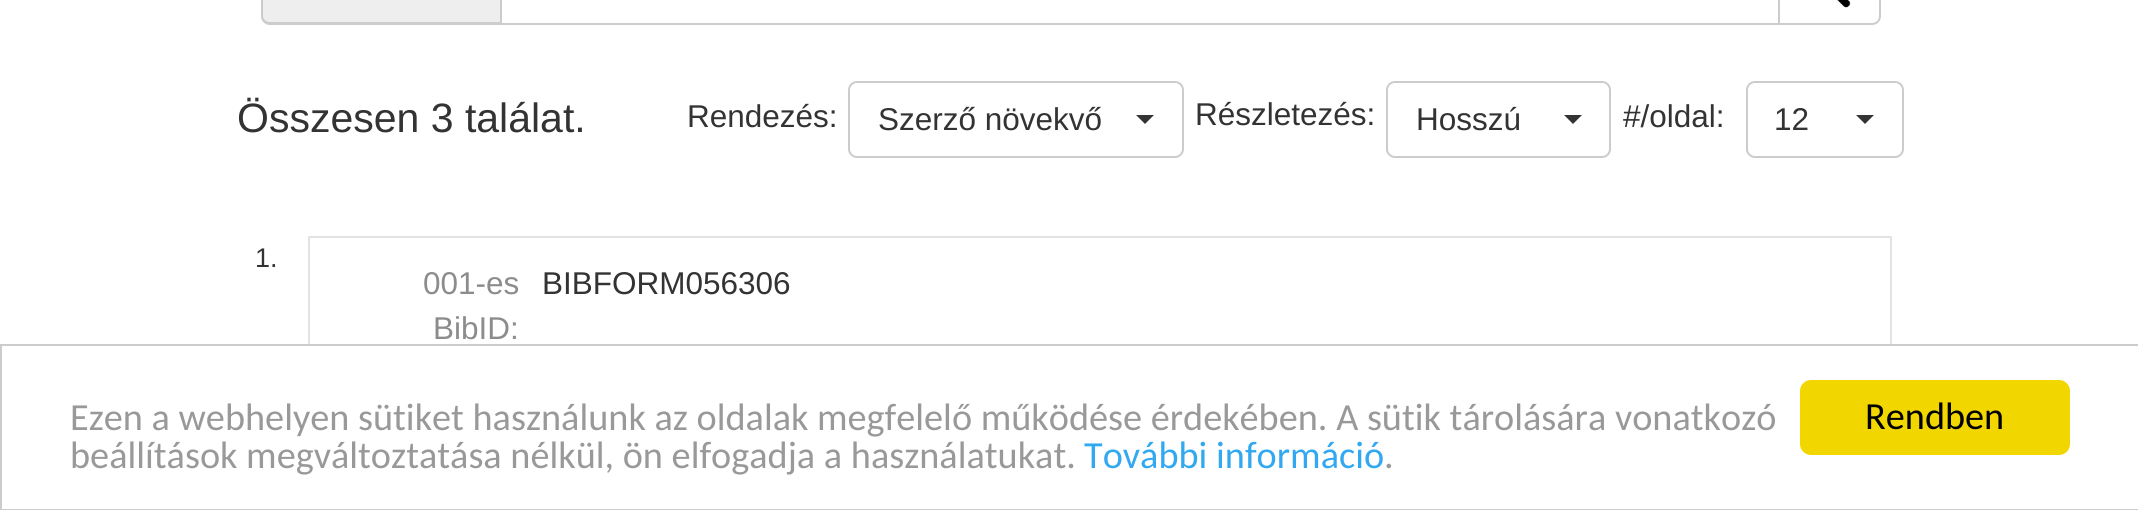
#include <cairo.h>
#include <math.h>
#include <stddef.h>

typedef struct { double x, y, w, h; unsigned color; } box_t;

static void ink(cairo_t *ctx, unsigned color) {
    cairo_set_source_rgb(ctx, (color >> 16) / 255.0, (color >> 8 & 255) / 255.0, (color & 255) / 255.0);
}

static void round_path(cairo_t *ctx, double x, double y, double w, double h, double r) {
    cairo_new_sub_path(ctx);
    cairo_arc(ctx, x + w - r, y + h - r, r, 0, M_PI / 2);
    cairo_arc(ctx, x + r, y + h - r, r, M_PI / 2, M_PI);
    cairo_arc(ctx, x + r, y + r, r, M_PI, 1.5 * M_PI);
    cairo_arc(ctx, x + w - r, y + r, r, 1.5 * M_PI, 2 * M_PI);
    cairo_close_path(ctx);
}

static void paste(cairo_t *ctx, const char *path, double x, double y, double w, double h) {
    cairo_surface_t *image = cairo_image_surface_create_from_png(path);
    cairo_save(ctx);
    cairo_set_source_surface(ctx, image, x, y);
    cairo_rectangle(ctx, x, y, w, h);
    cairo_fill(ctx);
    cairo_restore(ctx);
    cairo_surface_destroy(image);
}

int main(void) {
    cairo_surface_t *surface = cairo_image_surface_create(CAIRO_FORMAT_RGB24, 2138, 510);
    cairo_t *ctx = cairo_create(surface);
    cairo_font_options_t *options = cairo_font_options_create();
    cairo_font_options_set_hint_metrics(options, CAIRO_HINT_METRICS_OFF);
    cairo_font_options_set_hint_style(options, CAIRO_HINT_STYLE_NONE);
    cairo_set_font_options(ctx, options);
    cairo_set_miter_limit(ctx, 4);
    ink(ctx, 0xFFFFFF);
    cairo_paint(ctx);
    ink(ctx, 0xEEEEEE);
    cairo_new_path(ctx);
    cairo_move_to(ctx, 270, -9);
    cairo_line_to(ctx, 500, -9);
    cairo_line_to(ctx, 500, 25);
    cairo_line_to(ctx, 270, 25);
    cairo_curve_to(ctx, 265, 25, 261, 21, 261, 16);
    cairo_line_to(ctx, 261, 0);
    cairo_curve_to(ctx, 261, -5, 265, -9, 270, -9);
    cairo_close_path(ctx);
    cairo_fill(ctx);
    ink(ctx, 0xCCCCCC);
    cairo_set_fill_rule(ctx, CAIRO_FILL_RULE_EVEN_ODD);
    cairo_new_path(ctx);
    cairo_move_to(ctx, 270, -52);
    cairo_line_to(ctx, 500, -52);
    cairo_line_to(ctx, 500, 25);
    cairo_line_to(ctx, 270, 25);
    cairo_curve_to(ctx, 265, 25, 261, 21, 261, 16);
    cairo_line_to(ctx, 261, -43);
    cairo_curve_to(ctx, 261, -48, 265, -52, 270, -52);
    cairo_close_path(ctx);
    cairo_move_to(ctx, 270, -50);
    cairo_line_to(ctx, 500, -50);
    cairo_line_to(ctx, 500, 22);
    cairo_line_to(ctx, 270, 22);
    cairo_curve_to(ctx, 266, 22, 263, 19, 263, 16);
    cairo_line_to(ctx, 263, -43);
    cairo_curve_to(ctx, 263, -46, 266, -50, 270, -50);
    cairo_close_path(ctx);
    cairo_fill(ctx);
    cairo_rectangle(ctx, 501, -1, 1278, 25);
    cairo_stroke(ctx);
    ink(ctx, 0xFFFFFF);
    cairo_new_path(ctx);
    cairo_move_to(ctx, 1779, -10);
    cairo_line_to(ctx, 1872, -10);
    cairo_curve_to(ctx, 1876.5, -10, 1880, -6.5, 1880, -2);
    cairo_line_to(ctx, 1880, 16);
    cairo_curve_to(ctx, 1880, 20.5, 1876.5, 24, 1872, 24);
    cairo_line_to(ctx, 1779, 24);
    cairo_close_path(ctx);
    cairo_fill_preserve(ctx);
    ink(ctx, 0xCCCCCC);
    cairo_stroke(ctx);
    paste(ctx, "media/1.png", 1837, 0, 14, 8);
    cairo_select_font_face(ctx, "Liberation Sans", CAIRO_FONT_SLANT_NORMAL, CAIRO_FONT_WEIGHT_NORMAL);
    cairo_set_font_size(ctx, 41);
    ink(ctx, 0x333333);
    cairo_move_to(ctx, 237, 132);
    cairo_show_text(ctx, "Összesen 3 találat.");
    cairo_set_font_size(ctx, 31.5);
    cairo_move_to(ctx, 687, 127);
    cairo_show_text(ctx, "Rendezés:");
    round_path(ctx, 849, 82, 334, 75, 8);
    ink(ctx, 0xCCCCCC);
    cairo_stroke(ctx);
    ink(ctx, 0x333333);
    cairo_move_to(ctx, 878, 130);
    cairo_show_text(ctx, "Szerző növekvő");
    cairo_set_fill_rule(ctx, CAIRO_FILL_RULE_WINDING);
    cairo_new_path(ctx);
    cairo_move_to(ctx, 1136, 115);
    cairo_line_to(ctx, 1154, 115);
    cairo_line_to(ctx, 1145, 124);
    cairo_close_path(ctx);
    cairo_fill(ctx);
    cairo_move_to(ctx, 1195, 125);
    cairo_show_text(ctx, "Részletezés:");
    round_path(ctx, 1387, 82, 223, 75, 8);
    ink(ctx, 0xCCCCCC);
    cairo_stroke(ctx);
    ink(ctx, 0x333333);
    cairo_move_to(ctx, 1416, 130);
    cairo_show_text(ctx, "Hosszú");
    cairo_new_path(ctx);
    cairo_move_to(ctx, 1564, 115);
    cairo_line_to(ctx, 1582, 115);
    cairo_line_to(ctx, 1573, 124);
    cairo_close_path(ctx);
    cairo_fill(ctx);
    cairo_move_to(ctx, 1623, 127);
    cairo_show_text(ctx, "#/oldal:");
    round_path(ctx, 1747, 82, 156, 75, 8);
    ink(ctx, 0xCCCCCC);
    cairo_stroke(ctx);
    ink(ctx, 0x333333);
    cairo_move_to(ctx, 1774, 130);
    cairo_show_text(ctx, "12");
    cairo_new_path(ctx);
    cairo_move_to(ctx, 1856, 115);
    cairo_line_to(ctx, 1874, 115);
    cairo_line_to(ctx, 1865, 124);
    cairo_close_path(ctx);
    cairo_fill(ctx);
    cairo_set_font_size(ctx, 27);
    cairo_move_to(ctx, 255, 267);
    cairo_show_text(ctx, "1.");
    {
        static const box_t items[] = {
            {308, 236, 1584, 2, 0xE3E3E3},
            {1890, 236, 2, 108, 0xE3E3E3},
            {308, 236, 2, 108, 0xE3E3E3},
        };
        for (size_t i = 0; i < sizeof items / sizeof *items; i++) {
            ink(ctx, items[i].color);
            cairo_rectangle(ctx, items[i].x, items[i].y, items[i].w, items[i].h);
            cairo_fill(ctx);
        }
    }
    cairo_set_font_size(ctx, 31.5);
    ink(ctx, 0x8C8C8C);
    cairo_move_to(ctx, 423, 294);
    cairo_show_text(ctx, "001-es");
    cairo_move_to(ctx, 433, 339);
    cairo_show_text(ctx, "BibID:");
    ink(ctx, 0x333333);
    cairo_move_to(ctx, 542, 294);
    cairo_show_text(ctx, "BIBFORM056306");
    cairo_rectangle(ctx, 1, 345, 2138, 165);
    ink(ctx, 0xCCCCCC);
    cairo_stroke(ctx);
    cairo_select_font_face(ctx, "Carlito", CAIRO_FONT_SLANT_NORMAL, CAIRO_FONT_WEIGHT_NORMAL);
    cairo_set_font_size(ctx, 38.25);
    ink(ctx, 0x999999);
    cairo_move_to(ctx, 70, 430);
    cairo_show_text(ctx, "Ezen a webhelyen sütiket használunk az oldalak megfelelő működése érdekében. A sütik tárolására vonatkozó");
    cairo_move_to(ctx, 70, 468);
    cairo_show_text(ctx, "beállítások megváltoztatása nélkül, ön elfogadja a használatukat.");
    ink(ctx, 0x31A8F0);
    cairo_move_to(ctx, 1084, 468);
    cairo_show_text(ctx, "További információ");
    ink(ctx, 0x999999);
    cairo_move_to(ctx, 1384, 468);
    cairo_show_text(ctx, ".");
    ink(ctx, 0xF1D600);
    round_path(ctx, 1800, 380, 270, 75, 11);
    cairo_fill(ctx);
    ink(ctx, 0x000000);
    cairo_move_to(ctx, 1865, 429);
    cairo_show_text(ctx, "Rendben");
    cairo_surface_write_to_png(surface, "image.png");
    cairo_font_options_destroy(options);
    cairo_destroy(ctx);
    cairo_surface_destroy(surface);
    return 0;
}
